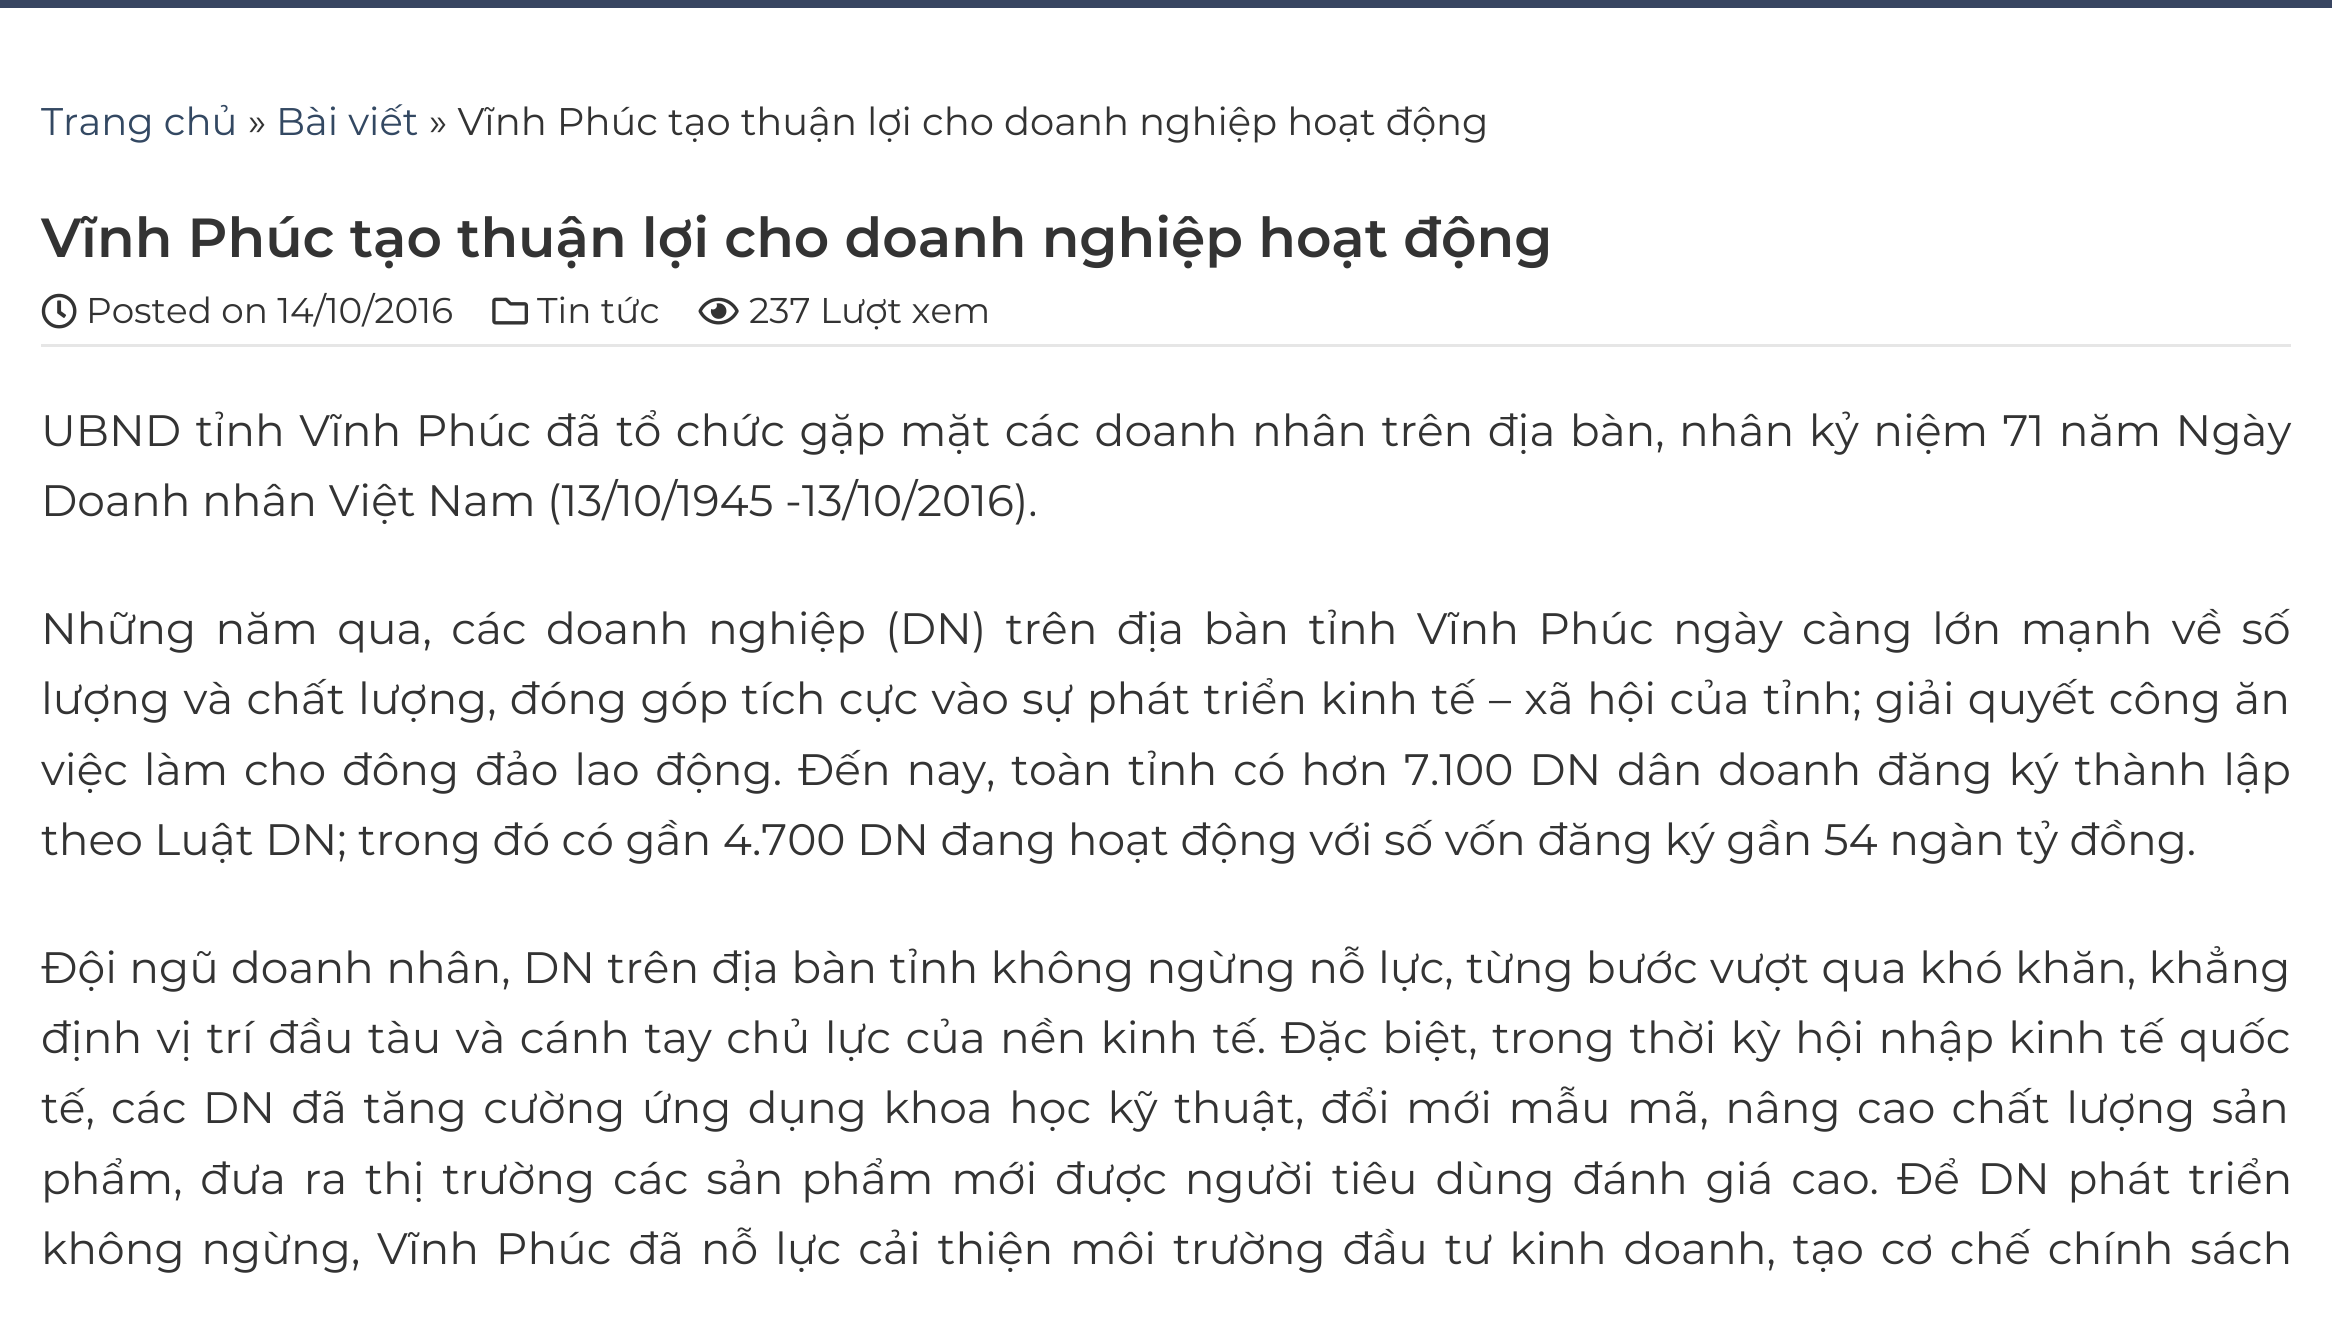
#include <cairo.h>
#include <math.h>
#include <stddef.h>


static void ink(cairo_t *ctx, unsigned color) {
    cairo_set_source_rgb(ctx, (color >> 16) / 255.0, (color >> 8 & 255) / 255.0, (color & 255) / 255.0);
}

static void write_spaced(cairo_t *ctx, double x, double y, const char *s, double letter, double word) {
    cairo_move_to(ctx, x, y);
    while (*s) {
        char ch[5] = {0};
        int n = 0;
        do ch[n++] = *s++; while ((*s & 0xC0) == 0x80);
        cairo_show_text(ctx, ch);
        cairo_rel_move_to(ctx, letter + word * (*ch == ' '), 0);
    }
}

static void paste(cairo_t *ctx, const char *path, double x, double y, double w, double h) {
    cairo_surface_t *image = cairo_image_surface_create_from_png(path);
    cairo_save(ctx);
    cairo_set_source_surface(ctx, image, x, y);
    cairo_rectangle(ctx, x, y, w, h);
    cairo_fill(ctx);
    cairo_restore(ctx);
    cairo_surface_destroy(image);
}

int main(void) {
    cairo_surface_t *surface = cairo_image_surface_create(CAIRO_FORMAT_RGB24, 2332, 1326);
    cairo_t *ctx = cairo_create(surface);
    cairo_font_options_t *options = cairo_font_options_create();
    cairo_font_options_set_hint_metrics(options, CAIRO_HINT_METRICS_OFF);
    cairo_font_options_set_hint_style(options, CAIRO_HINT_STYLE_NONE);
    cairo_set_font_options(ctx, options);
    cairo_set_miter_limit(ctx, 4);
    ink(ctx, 0xFFFFFF);
    cairo_paint(ctx);
    ink(ctx, 0x384561);
    cairo_rectangle(ctx, 0, 0, 2332, 8);
    cairo_fill(ctx);
    cairo_select_font_face(ctx, "Montserrat", CAIRO_FONT_SLANT_NORMAL, CAIRO_FONT_WEIGHT_NORMAL);
    cairo_set_font_size(ctx, 38.5);
    ink(ctx, 0x334862);
    cairo_move_to(ctx, 41, 135);
    cairo_show_text(ctx, "Trang chủ");
    ink(ctx, 0x333333);
    cairo_move_to(ctx, 248, 135);
    cairo_show_text(ctx, "»");
    ink(ctx, 0x334862);
    cairo_move_to(ctx, 276, 135);
    cairo_show_text(ctx, "Bài viết");
    ink(ctx, 0x333333);
    cairo_move_to(ctx, 429, 135);
    cairo_show_text(ctx, "» Vĩnh Phúc tạo thuận lợi cho doanh nghiệp hoạt động");
    cairo_select_font_face(ctx, "Montserrat SemiBold", CAIRO_FONT_SLANT_NORMAL, CAIRO_FONT_WEIGHT_NORMAL);
    cairo_set_font_size(ctx, 55);
    cairo_move_to(ctx, 41, 257);
    cairo_show_text(ctx, "Vĩnh Phúc tạo thuận lợi cho doanh nghiệp hoạt động");
    paste(ctx, "media/1.png", 41, 293, 36, 36);
    cairo_select_font_face(ctx, "Montserrat", CAIRO_FONT_SLANT_NORMAL, CAIRO_FONT_WEIGHT_NORMAL);
    cairo_set_font_size(ctx, 35.75);
    cairo_move_to(ctx, 86, 323);
    cairo_show_text(ctx, "Posted on 14/10/2016");
    paste(ctx, "media/2.png", 492, 297, 36, 28);
    cairo_move_to(ctx, 537, 323);
    cairo_show_text(ctx, "Tin tức");
    paste(ctx, "media/3.png", 698, 297, 41, 28);
    cairo_move_to(ctx, 749, 323);
    cairo_show_text(ctx, "237 Lượt xem");
    ink(ctx, 0xE6E6E6);
    cairo_rectangle(ctx, 41, 344, 2250, 3);
    cairo_fill(ctx);
    cairo_set_font_size(ctx, 44);
    ink(ctx, 0x333333);
    write_spaced(ctx, 41, 446, "UBND tỉnh Vĩnh Phúc đã tổ chức gặp mặt các doanh nhân trên địa bàn, nhân kỷ niệm 71 năm Ngày", 0, 2.9);
    cairo_move_to(ctx, 41, 516);
    cairo_show_text(ctx, "Doanh nhân Việt Nam (13/10/1945 -13/10/2016).");
    write_spaced(ctx, 41, 644, "Những năm qua, các doanh nghiệp (DN) trên địa bàn tỉnh Vĩnh Phúc ngày càng lớn mạnh về số", 0, 7.75);
    write_spaced(ctx, 41, 714, "lượng và chất lượng, đóng góp tích cực vào sự phát triển kinh tế – xã hội của tỉnh; giải quyết công ăn", 0, 1.75);
    write_spaced(ctx, 41, 785, "việc làm cho đông đảo lao động. Đến nay, toàn tỉnh có hơn 7.100 DN dân doanh đăng ký thành lập", 0, 4.25);
    cairo_move_to(ctx, 41, 855);
    cairo_show_text(ctx, "theo Luật DN; trong đó có gần 4.700 DN đang hoạt động với số vốn đăng ký gần 54 ngàn tỷ đồng.");
    write_spaced(ctx, 41, 983, "Đội ngũ doanh nhân, DN trên địa bàn tỉnh không ngừng nỗ lực, từng bước vượt qua khó khăn, khẳng", 0, 0.75);
    write_spaced(ctx, 41, 1053, "định vị trí đầu tàu và cánh tay chủ lực của nền kinh tế. Đặc biệt, trong thời kỳ hội nhập kinh tế quốc", 0, 2.8);
    write_spaced(ctx, 41, 1123, "tế, các DN đã tăng cường ứng dụng khoa học kỹ thuật, đổi mới mẫu mã, nâng cao chất lượng sản", 0, 4.75);
    write_spaced(ctx, 41, 1194, "phẩm, đưa ra thị trường các sản phẩm mới được người tiêu dùng đánh giá cao. Để DN phát triển", 0, 6.25);
    write_spaced(ctx, 41, 1264, "không ngừng, Vĩnh Phúc đã nỗ lực cải thiện môi trường đầu tư kinh doanh, tạo cơ chế chính sách", 0, 5.25);
    cairo_surface_write_to_png(surface, "image.png");
    cairo_font_options_destroy(options);
    cairo_destroy(ctx);
    cairo_surface_destroy(surface);
    return 0;
}
